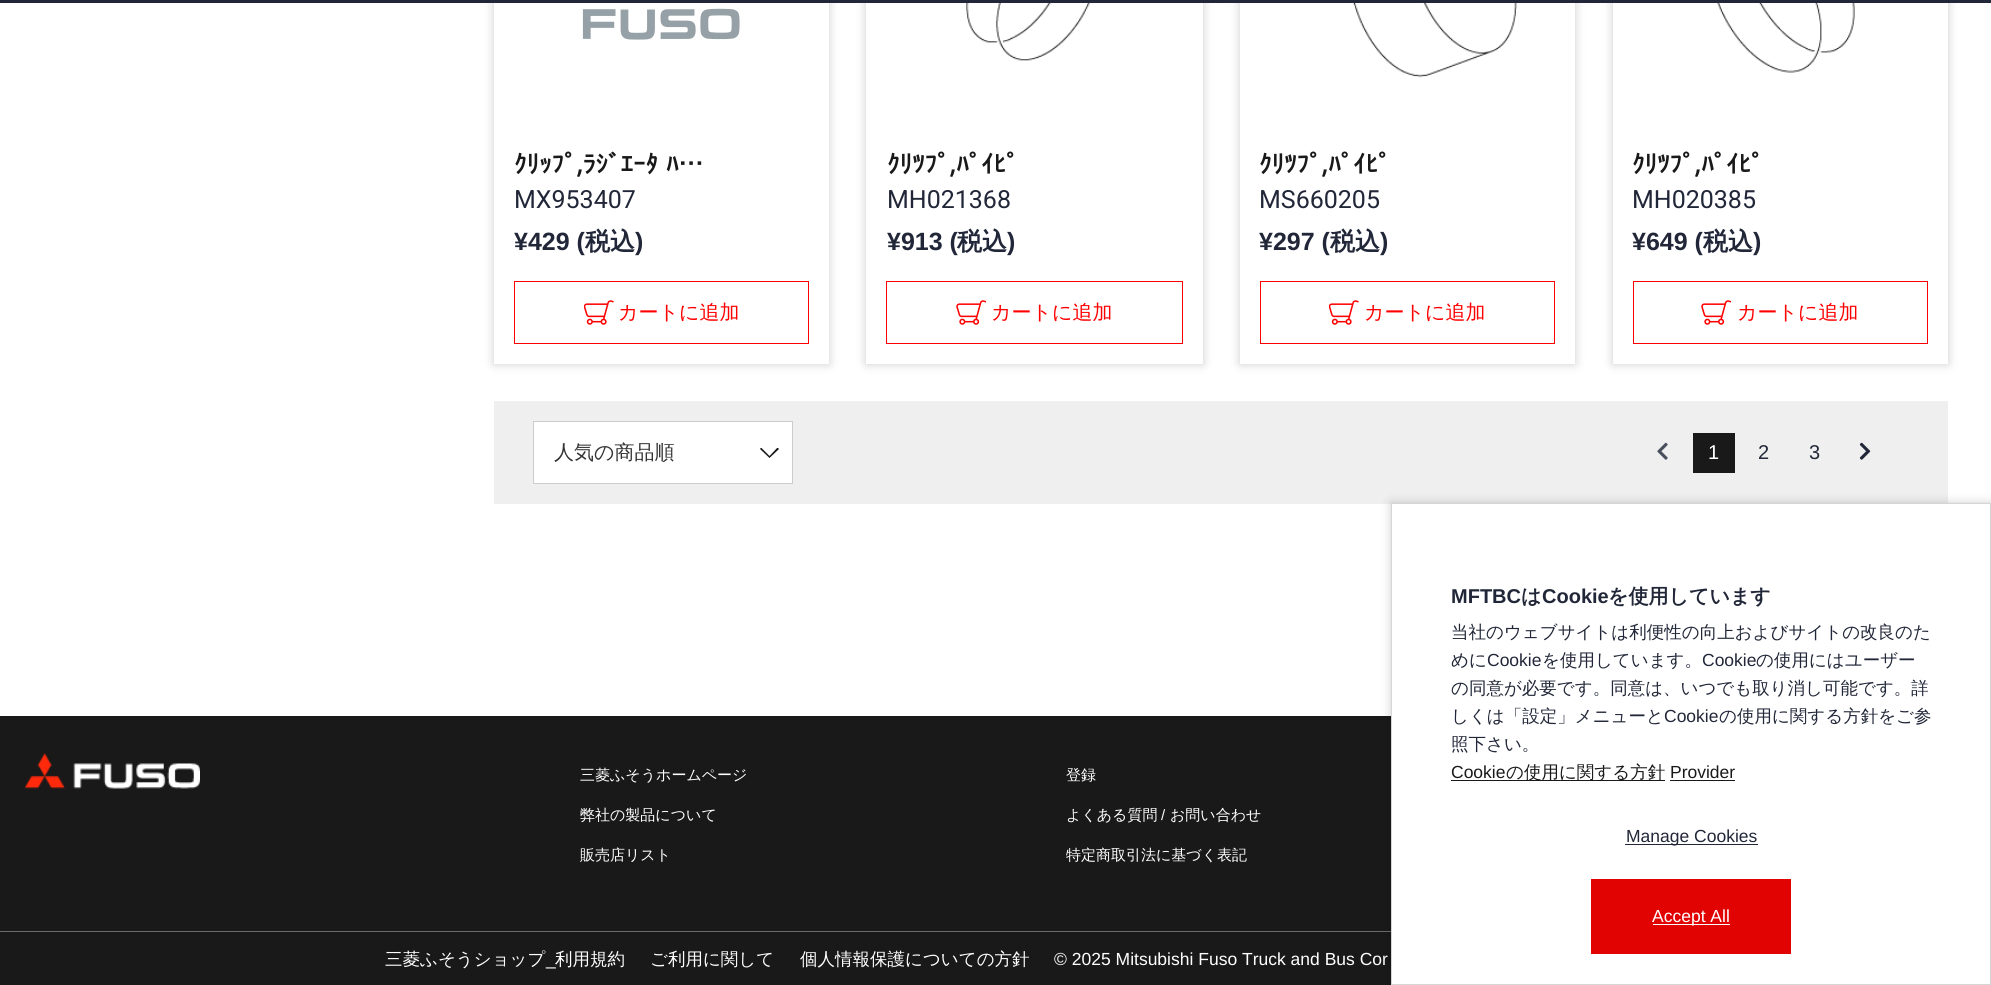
#include <cairo.h>
#include <math.h>
#include <stddef.h>

typedef struct { double x, y; const char *s; } line_t;

static void ink(cairo_t *ctx, unsigned color) {
    cairo_set_source_rgb(ctx, (color >> 16) / 255.0, (color >> 8 & 255) / 255.0, (color & 255) / 255.0);
}

static void write_spaced(cairo_t *ctx, double x, double y, const char *s, double letter, double word) {
    cairo_move_to(ctx, x, y);
    while (*s) {
        char ch[5] = {0};
        int n = 0;
        do ch[n++] = *s++; while ((*s & 0xC0) == 0x80);
        cairo_show_text(ctx, ch);
        cairo_rel_move_to(ctx, letter + word * (*ch == ' '), 0);
    }
}

static void round_path(cairo_t *ctx, double x, double y, double w, double h, double r) {
    cairo_new_sub_path(ctx);
    cairo_arc(ctx, x + w - r, y + h - r, r, 0, M_PI / 2);
    cairo_arc(ctx, x + r, y + h - r, r, M_PI / 2, M_PI);
    cairo_arc(ctx, x + r, y + r, r, M_PI, 1.5 * M_PI);
    cairo_arc(ctx, x + w - r, y + r, r, 1.5 * M_PI, 2 * M_PI);
    cairo_close_path(ctx);
}

static void blur_box(cairo_t *ctx, double x, double y, double w, double h, double r, double blur, double alpha) {
    cairo_push_group_with_content(ctx, CAIRO_CONTENT_ALPHA);
    cairo_set_operator(ctx, CAIRO_OPERATOR_SOURCE);
    for (int i = 15; i >= -15 && fmin(w, h) + blur * i / 3 > 0; i -= 2) {
        double e = blur * i / 6;
        cairo_set_source_rgba(ctx, 0, 0, 0, alpha * erfc((i - 1) / 8.5) / 2);
        round_path(ctx, x - e, y - e, w + 2 * e, h + 2 * e, fmax(0, fmin(r + e + blur * .6, fmin(w, h) / 2 + e)));
        cairo_fill(ctx);
    }
    cairo_pattern_t *soft = cairo_pop_group(ctx);
    cairo_mask(ctx, soft);
    cairo_pattern_destroy(soft);
}

static void paste(cairo_t *ctx, const char *path, double x, double y, double w, double h) {
    cairo_surface_t *image = cairo_image_surface_create_from_png(path);
    cairo_save(ctx);
    cairo_set_source_surface(ctx, image, x, y);
    cairo_rectangle(ctx, x, y, w, h);
    cairo_fill(ctx);
    cairo_restore(ctx);
    cairo_surface_destroy(image);
}

int main(void) {
    cairo_surface_t *surface = cairo_image_surface_create(CAIRO_FORMAT_RGB24, 1991, 985);
    cairo_t *ctx = cairo_create(surface);
    cairo_font_options_t *options = cairo_font_options_create();
    cairo_font_options_set_hint_metrics(options, CAIRO_HINT_METRICS_OFF);
    cairo_font_options_set_hint_style(options, CAIRO_HINT_STYLE_NONE);
    cairo_set_font_options(ctx, options);
    cairo_set_miter_limit(ctx, 4);
    ink(ctx, 0xFFFFFF);
    cairo_paint(ctx);
    cairo_save(ctx);
    cairo_set_fill_rule(ctx, CAIRO_FILL_RULE_EVEN_ODD);
    cairo_new_path(ctx);
    cairo_move_to(ctx, 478, 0);
    cairo_line_to(ctx, 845, 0);
    cairo_line_to(ctx, 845, 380);
    cairo_line_to(ctx, 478, 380);
    cairo_close_path(ctx);
    cairo_move_to(ctx, 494, -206);
    cairo_line_to(ctx, 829, -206);
    cairo_line_to(ctx, 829, 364);
    cairo_line_to(ctx, 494, 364);
    cairo_close_path(ctx);
    cairo_clip(ctx);
    ink(ctx, 0x000000);
    blur_box(ctx, 494, -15, 335, 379, 0, 5, 0.2);
    cairo_restore(ctx);
    cairo_save(ctx);
    cairo_set_fill_rule(ctx, CAIRO_FILL_RULE_EVEN_ODD);
    cairo_new_path(ctx);
    cairo_move_to(ctx, 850, 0);
    cairo_line_to(ctx, 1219, 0);
    cairo_line_to(ctx, 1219, 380);
    cairo_line_to(ctx, 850, 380);
    cairo_close_path(ctx);
    cairo_move_to(ctx, 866, -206);
    cairo_line_to(ctx, 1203, -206);
    cairo_line_to(ctx, 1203, 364);
    cairo_line_to(ctx, 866, 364);
    cairo_close_path(ctx);
    cairo_clip(ctx);
    ink(ctx, 0x000000);
    blur_box(ctx, 866, -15, 337, 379, 0, 5, 0.2);
    cairo_restore(ctx);
    cairo_save(ctx);
    cairo_set_fill_rule(ctx, CAIRO_FILL_RULE_EVEN_ODD);
    cairo_new_path(ctx);
    cairo_move_to(ctx, 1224, 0);
    cairo_line_to(ctx, 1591, 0);
    cairo_line_to(ctx, 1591, 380);
    cairo_line_to(ctx, 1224, 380);
    cairo_close_path(ctx);
    cairo_move_to(ctx, 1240, -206);
    cairo_line_to(ctx, 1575, -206);
    cairo_line_to(ctx, 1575, 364);
    cairo_line_to(ctx, 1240, 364);
    cairo_close_path(ctx);
    cairo_clip(ctx);
    ink(ctx, 0x000000);
    blur_box(ctx, 1240, -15, 335, 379, 0, 5, 0.2);
    cairo_restore(ctx);
    cairo_save(ctx);
    cairo_set_fill_rule(ctx, CAIRO_FILL_RULE_EVEN_ODD);
    cairo_new_path(ctx);
    cairo_move_to(ctx, 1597, 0);
    cairo_line_to(ctx, 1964, 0);
    cairo_line_to(ctx, 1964, 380);
    cairo_line_to(ctx, 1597, 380);
    cairo_close_path(ctx);
    cairo_move_to(ctx, 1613, -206);
    cairo_line_to(ctx, 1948, -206);
    cairo_line_to(ctx, 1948, 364);
    cairo_line_to(ctx, 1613, 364);
    cairo_close_path(ctx);
    cairo_clip(ctx);
    ink(ctx, 0x000000);
    blur_box(ctx, 1613, -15, 335, 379, 0, 5, 0.2);
    cairo_restore(ctx);
    ink(ctx, 0x212738);
    cairo_rectangle(ctx, 0, 0, 1991, 3);
    cairo_fill(ctx);
    paste(ctx, "media/1.png", 582, 8, 158, 32);
    cairo_select_font_face(ctx, "IPAPGothic", CAIRO_FONT_SLANT_NORMAL, CAIRO_FONT_WEIGHT_BOLD);
    cairo_set_font_size(ctx, 25);
    ink(ctx, 0x191919);
    write_spaced(ctx, 514, 173, "ｸﾘｯﾌﾟ,ﾗｼﾞｴｰﾀ ﾊ…", 0, 1);
    cairo_select_font_face(ctx, "Roboto", CAIRO_FONT_SLANT_NORMAL, CAIRO_FONT_WEIGHT_NORMAL);
    ink(ctx, 0x212738);
    cairo_move_to(ctx, 514, 208);
    cairo_show_text(ctx, "MX953407");
    cairo_select_font_face(ctx, "Liberation Sans", CAIRO_FONT_SLANT_NORMAL, CAIRO_FONT_WEIGHT_BOLD);
    cairo_move_to(ctx, 514, 250);
    cairo_show_text(ctx, "¥429 (");
    cairo_select_font_face(ctx, "WenQuanYi Zen Hei", CAIRO_FONT_SLANT_NORMAL, CAIRO_FONT_WEIGHT_BOLD);
    cairo_move_to(ctx, 585, 250);
    cairo_show_text(ctx, "税込");
    cairo_select_font_face(ctx, "Liberation Sans", CAIRO_FONT_SLANT_NORMAL, CAIRO_FONT_WEIGHT_BOLD);
    cairo_move_to(ctx, 635, 250);
    cairo_show_text(ctx, ")");
    cairo_rectangle(ctx, 514.5, 281.5, 294, 62);
    ink(ctx, 0xFF0000);
    cairo_set_line_width(ctx, 1);
    cairo_stroke(ctx);
    paste(ctx, "media/2.png", 584, 300, 30, 25);
    cairo_select_font_face(ctx, "WenQuanYi Zen Hei Medium", CAIRO_FONT_SLANT_NORMAL, CAIRO_FONT_WEIGHT_NORMAL);
    cairo_set_font_size(ctx, 20);
    cairo_move_to(ctx, 618, 319);
    cairo_show_text(ctx, "カートに追加");
    paste(ctx, "media/3.png", 966, 3, 125, 58);
    cairo_select_font_face(ctx, "IPAPGothic", CAIRO_FONT_SLANT_NORMAL, CAIRO_FONT_WEIGHT_BOLD);
    cairo_set_font_size(ctx, 25);
    ink(ctx, 0x191919);
    cairo_move_to(ctx, 887, 173);
    cairo_show_text(ctx, "ｸﾘﾂﾌﾟ,ﾊﾟｲﾋﾟ");
    cairo_select_font_face(ctx, "Roboto", CAIRO_FONT_SLANT_NORMAL, CAIRO_FONT_WEIGHT_NORMAL);
    ink(ctx, 0x212738);
    cairo_move_to(ctx, 887, 208);
    cairo_show_text(ctx, "MH021368");
    cairo_select_font_face(ctx, "Liberation Sans", CAIRO_FONT_SLANT_NORMAL, CAIRO_FONT_WEIGHT_BOLD);
    cairo_move_to(ctx, 887, 250);
    cairo_show_text(ctx, "¥913 (");
    cairo_select_font_face(ctx, "WenQuanYi Zen Hei", CAIRO_FONT_SLANT_NORMAL, CAIRO_FONT_WEIGHT_BOLD);
    cairo_move_to(ctx, 957, 250);
    cairo_show_text(ctx, "税込");
    cairo_select_font_face(ctx, "Liberation Sans", CAIRO_FONT_SLANT_NORMAL, CAIRO_FONT_WEIGHT_BOLD);
    cairo_move_to(ctx, 1007, 250);
    cairo_show_text(ctx, ")");
    cairo_rectangle(ctx, 886.5, 281.5, 296, 62);
    ink(ctx, 0xFF0000);
    cairo_stroke(ctx);
    paste(ctx, "media/4.png", 956, 300, 30, 25);
    cairo_select_font_face(ctx, "WenQuanYi Zen Hei Medium", CAIRO_FONT_SLANT_NORMAL, CAIRO_FONT_WEIGHT_NORMAL);
    cairo_set_font_size(ctx, 20);
    cairo_move_to(ctx, 991, 319);
    cairo_show_text(ctx, "カートに追加");
    paste(ctx, "media/5.png", 1352, 3, 165, 75);
    cairo_select_font_face(ctx, "IPAPGothic", CAIRO_FONT_SLANT_NORMAL, CAIRO_FONT_WEIGHT_BOLD);
    cairo_set_font_size(ctx, 25);
    ink(ctx, 0x191919);
    cairo_move_to(ctx, 1259, 173);
    cairo_show_text(ctx, "ｸﾘﾂﾌﾟ,ﾊﾟｲﾋﾟ");
    cairo_select_font_face(ctx, "Roboto", CAIRO_FONT_SLANT_NORMAL, CAIRO_FONT_WEIGHT_NORMAL);
    ink(ctx, 0x212738);
    cairo_move_to(ctx, 1259, 208);
    cairo_show_text(ctx, "MS660205");
    cairo_select_font_face(ctx, "Liberation Sans", CAIRO_FONT_SLANT_NORMAL, CAIRO_FONT_WEIGHT_BOLD);
    cairo_move_to(ctx, 1259, 250);
    cairo_show_text(ctx, "¥297 (");
    cairo_select_font_face(ctx, "WenQuanYi Zen Hei", CAIRO_FONT_SLANT_NORMAL, CAIRO_FONT_WEIGHT_BOLD);
    cairo_move_to(ctx, 1330, 250);
    cairo_show_text(ctx, "税込");
    cairo_select_font_face(ctx, "Liberation Sans", CAIRO_FONT_SLANT_NORMAL, CAIRO_FONT_WEIGHT_BOLD);
    cairo_move_to(ctx, 1380, 250);
    cairo_show_text(ctx, ")");
    cairo_rectangle(ctx, 1260.5, 281.5, 294, 62);
    ink(ctx, 0xFF0000);
    cairo_stroke(ctx);
    paste(ctx, "media/2.png", 1329, 300, 30, 25);
    cairo_select_font_face(ctx, "WenQuanYi Zen Hei Medium", CAIRO_FONT_SLANT_NORMAL, CAIRO_FONT_WEIGHT_NORMAL);
    cairo_set_font_size(ctx, 20);
    cairo_move_to(ctx, 1364, 319);
    cairo_show_text(ctx, "カートに追加");
    paste(ctx, "media/6.png", 1716, 3, 139, 70);
    cairo_select_font_face(ctx, "IPAPGothic", CAIRO_FONT_SLANT_NORMAL, CAIRO_FONT_WEIGHT_BOLD);
    cairo_set_font_size(ctx, 25);
    ink(ctx, 0x191919);
    cairo_move_to(ctx, 1632, 173);
    cairo_show_text(ctx, "ｸﾘﾂﾌﾟ,ﾊﾟｲﾋﾟ");
    cairo_select_font_face(ctx, "Roboto", CAIRO_FONT_SLANT_NORMAL, CAIRO_FONT_WEIGHT_NORMAL);
    ink(ctx, 0x212738);
    cairo_move_to(ctx, 1632, 208);
    cairo_show_text(ctx, "MH020385");
    cairo_select_font_face(ctx, "Liberation Sans", CAIRO_FONT_SLANT_NORMAL, CAIRO_FONT_WEIGHT_BOLD);
    cairo_move_to(ctx, 1632, 250);
    cairo_show_text(ctx, "¥649 (");
    cairo_select_font_face(ctx, "WenQuanYi Zen Hei", CAIRO_FONT_SLANT_NORMAL, CAIRO_FONT_WEIGHT_BOLD);
    cairo_move_to(ctx, 1703, 250);
    cairo_show_text(ctx, "税込");
    cairo_select_font_face(ctx, "Liberation Sans", CAIRO_FONT_SLANT_NORMAL, CAIRO_FONT_WEIGHT_BOLD);
    cairo_move_to(ctx, 1753, 250);
    cairo_show_text(ctx, ")");
    cairo_rectangle(ctx, 1633.5, 281.5, 294, 62);
    ink(ctx, 0xFF0000);
    cairo_stroke(ctx);
    paste(ctx, "media/4.png", 1701, 300, 30, 25);
    cairo_select_font_face(ctx, "WenQuanYi Zen Hei Medium", CAIRO_FONT_SLANT_NORMAL, CAIRO_FONT_WEIGHT_NORMAL);
    cairo_set_font_size(ctx, 20);
    cairo_move_to(ctx, 1737, 319);
    cairo_show_text(ctx, "カートに追加");
    ink(ctx, 0xEFEFEF);
    cairo_rectangle(ctx, 494, 401, 1454, 103);
    cairo_fill(ctx);
    ink(ctx, 0xFFFFFF);
    cairo_rectangle(ctx, 533.5, 421.5, 259, 62);
    cairo_fill_preserve(ctx);
    ink(ctx, 0xCCCCCC);
    cairo_stroke(ctx);
    ink(ctx, 0x333333);
    cairo_move_to(ctx, 554, 459);
    cairo_show_text(ctx, "人気の商品順");
    cairo_save(ctx);
    cairo_rectangle(ctx, 760, 448, 19, 10);
    cairo_clip(ctx);
    ink(ctx, 0x191919);
    cairo_new_path(ctx);
    cairo_move_to(ctx, 760, 449);
    cairo_line_to(ctx, 761, 447.5);
    cairo_line_to(ctx, 769.5, 456);
    cairo_line_to(ctx, 777.5, 447.5);
    cairo_line_to(ctx, 779, 449);
    cairo_line_to(ctx, 769.5, 458);
    cairo_close_path(ctx);
    cairo_fill(ctx);
    cairo_restore(ctx);
    paste(ctx, "media/7.png", 1657, 442, 11, 18);
    ink(ctx, 0x191919);
    cairo_rectangle(ctx, 1693, 433, 42, 40);
    cairo_fill(ctx);
    cairo_select_font_face(ctx, "Liberation Sans", CAIRO_FONT_SLANT_NORMAL, CAIRO_FONT_WEIGHT_NORMAL);
    ink(ctx, 0xFFFFFF);
    cairo_move_to(ctx, 1708, 459);
    cairo_show_text(ctx, "1");
    ink(ctx, 0x212738);
    cairo_move_to(ctx, 1758, 459);
    cairo_show_text(ctx, "2");
    cairo_move_to(ctx, 1809, 459);
    cairo_show_text(ctx, "3");
    paste(ctx, "media/8.png", 1859, 442, 12, 18);
    ink(ctx, 0x191919);
    cairo_rectangle(ctx, 0, 716, 1391, 269);
    cairo_fill(ctx);
    paste(ctx, "media/9.png", 25, 753, 175, 36);
    cairo_select_font_face(ctx, "WenQuanYi Zen Hei Medium", CAIRO_FONT_SLANT_NORMAL, CAIRO_FONT_WEIGHT_NORMAL);
    cairo_set_font_size(ctx, 15);
    ink(ctx, 0xFFFFFF);
    {
        static const line_t items[] = {
            {580, 780, "三菱ふそうホームページ"},
            {580, 820, "弊社の製品について"},
            {580, 860, "販売店リスト"},
            {1066, 780, "登録"},
            {1066, 820, "よくある質問"},
        };
        for (size_t i = 0; i < sizeof items / sizeof *items; i++) {
            cairo_move_to(ctx, items[i].x, items[i].y);
            cairo_show_text(ctx, items[i].s);
        }
    }
    cairo_select_font_face(ctx, "Liberation Sans", CAIRO_FONT_SLANT_NORMAL, CAIRO_FONT_WEIGHT_NORMAL);
    cairo_move_to(ctx, 1161, 820);
    cairo_show_text(ctx, "/");
    cairo_select_font_face(ctx, "WenQuanYi Zen Hei Medium", CAIRO_FONT_SLANT_NORMAL, CAIRO_FONT_WEIGHT_NORMAL);
    cairo_move_to(ctx, 1170, 820);
    cairo_show_text(ctx, "お問い合わせ");
    cairo_move_to(ctx, 1066, 860);
    cairo_show_text(ctx, "特定商取引法に基づく表記");
    ink(ctx, 0x6A6A6A);
    cairo_rectangle(ctx, 0, 931, 1391, 1);
    cairo_fill(ctx);
    cairo_set_font_size(ctx, 17.5);
    ink(ctx, 0xFFFFFF);
    cairo_move_to(ctx, 385, 965);
    cairo_show_text(ctx, "三菱ふそうショップ");
    cairo_select_font_face(ctx, "Liberation Sans", CAIRO_FONT_SLANT_NORMAL, CAIRO_FONT_WEIGHT_NORMAL);
    cairo_move_to(ctx, 546, 965);
    cairo_show_text(ctx, "_");
    cairo_select_font_face(ctx, "WenQuanYi Zen Hei Medium", CAIRO_FONT_SLANT_NORMAL, CAIRO_FONT_WEIGHT_NORMAL);
    {
        static const line_t items[] = {
            {555, 965, "利用規約"},
            {650, 965, "ご利用に関して"},
            {800, 965, "個人情報保護についての方針"},
        };
        for (size_t i = 0; i < sizeof items / sizeof *items; i++) {
            cairo_move_to(ctx, items[i].x, items[i].y);
            cairo_show_text(ctx, items[i].s);
        }
    }
    cairo_select_font_face(ctx, "Liberation Sans", CAIRO_FONT_SLANT_NORMAL, CAIRO_FONT_WEIGHT_NORMAL);
    cairo_move_to(ctx, 1054, 965);
    cairo_show_text(ctx, "© 2025 Mitsubishi Fuso Truck and Bus Cor");
    ink(ctx, 0x000000);
    blur_box(ctx, 1391, 503, 600, 482, 0, 5, 0.2);
    ink(ctx, 0xFFFFFF);
    cairo_rectangle(ctx, 1391.5, 503.5, 599, 481);
    cairo_fill_preserve(ctx);
    ink(ctx, 0xD6D6D6);
    cairo_stroke(ctx);
    cairo_select_font_face(ctx, "Liberation Sans", CAIRO_FONT_SLANT_NORMAL, CAIRO_FONT_WEIGHT_BOLD);
    cairo_set_font_size(ctx, 20);
    ink(ctx, 0x212738);
    cairo_move_to(ctx, 1451, 603);
    cairo_show_text(ctx, "MFTBC");
    cairo_select_font_face(ctx, "WenQuanYi Zen Hei", CAIRO_FONT_SLANT_NORMAL, CAIRO_FONT_WEIGHT_BOLD);
    cairo_move_to(ctx, 1521, 603);
    cairo_show_text(ctx, "は");
    cairo_select_font_face(ctx, "Liberation Sans", CAIRO_FONT_SLANT_NORMAL, CAIRO_FONT_WEIGHT_BOLD);
    cairo_move_to(ctx, 1542, 603);
    cairo_show_text(ctx, "Cookie");
    cairo_select_font_face(ctx, "WenQuanYi Zen Hei", CAIRO_FONT_SLANT_NORMAL, CAIRO_FONT_WEIGHT_BOLD);
    cairo_move_to(ctx, 1608, 603);
    cairo_show_text(ctx, "を使用しています");
    cairo_select_font_face(ctx, "WenQuanYi Zen Hei Medium", CAIRO_FONT_SLANT_NORMAL, CAIRO_FONT_WEIGHT_NORMAL);
    cairo_set_font_size(ctx, 17.5);
    cairo_move_to(ctx, 1451, 638);
    cairo_show_text(ctx, "当社のウェブサイトは利便性の向上およびサイトの改良のた");
    cairo_move_to(ctx, 1451, 666);
    cairo_show_text(ctx, "めに");
    cairo_select_font_face(ctx, "Liberation Sans", CAIRO_FONT_SLANT_NORMAL, CAIRO_FONT_WEIGHT_NORMAL);
    cairo_move_to(ctx, 1487, 666);
    cairo_show_text(ctx, "Cookie");
    cairo_select_font_face(ctx, "WenQuanYi Zen Hei Medium", CAIRO_FONT_SLANT_NORMAL, CAIRO_FONT_WEIGHT_NORMAL);
    cairo_move_to(ctx, 1542, 666);
    cairo_show_text(ctx, "を使用しています。");
    cairo_select_font_face(ctx, "Liberation Sans", CAIRO_FONT_SLANT_NORMAL, CAIRO_FONT_WEIGHT_NORMAL);
    cairo_move_to(ctx, 1702, 666);
    cairo_show_text(ctx, "Cookie");
    cairo_select_font_face(ctx, "WenQuanYi Zen Hei Medium", CAIRO_FONT_SLANT_NORMAL, CAIRO_FONT_WEIGHT_NORMAL);
    {
        static const line_t items[] = {
            {1756, 666, "の使用にはユーザー"},
            {1451, 694, "の同意が必要です。同意は、いつでも取り消し可能です。詳"},
            {1451, 722, "しくは「設定」メニューと"},
        };
        for (size_t i = 0; i < sizeof items / sizeof *items; i++) {
            cairo_move_to(ctx, items[i].x, items[i].y);
            cairo_show_text(ctx, items[i].s);
        }
    }
    cairo_select_font_face(ctx, "Liberation Sans", CAIRO_FONT_SLANT_NORMAL, CAIRO_FONT_WEIGHT_NORMAL);
    cairo_move_to(ctx, 1664, 722);
    cairo_show_text(ctx, "Cookie");
    cairo_select_font_face(ctx, "WenQuanYi Zen Hei Medium", CAIRO_FONT_SLANT_NORMAL, CAIRO_FONT_WEIGHT_NORMAL);
    cairo_move_to(ctx, 1719, 722);
    cairo_show_text(ctx, "の使用に関する方針をご参");
    cairo_move_to(ctx, 1451, 750);
    cairo_show_text(ctx, "照下さい。");
    cairo_select_font_face(ctx, "Liberation Sans", CAIRO_FONT_SLANT_NORMAL, CAIRO_FONT_WEIGHT_NORMAL);
    ink(ctx, 0x191919);
    cairo_move_to(ctx, 1451, 778);
    cairo_show_text(ctx, "Cookie");
    cairo_rectangle(ctx, 1451, 780, 214, 1);
    cairo_fill(ctx);
    cairo_select_font_face(ctx, "WenQuanYi Zen Hei Medium", CAIRO_FONT_SLANT_NORMAL, CAIRO_FONT_WEIGHT_NORMAL);
    cairo_move_to(ctx, 1506, 778);
    cairo_show_text(ctx, "の使用に関する方針");
    cairo_select_font_face(ctx, "Liberation Sans", CAIRO_FONT_SLANT_NORMAL, CAIRO_FONT_WEIGHT_NORMAL);
    cairo_move_to(ctx, 1670, 778);
    cairo_show_text(ctx, "Provider");
    cairo_rectangle(ctx, 1670, 780, 65, 1);
    cairo_fill(ctx);
    ink(ctx, 0x212738);
    cairo_rectangle(ctx, 1625, 844, 133, 1);
    cairo_fill(ctx);
    cairo_move_to(ctx, 1626, 842);
    cairo_show_text(ctx, "Manage Cookies");
    ink(ctx, 0xE10202);
    cairo_rectangle(ctx, 1591, 879, 200, 75);
    cairo_fill(ctx);
    ink(ctx, 0xFFFFFF);
    cairo_rectangle(ctx, 1653, 924, 77, 1);
    cairo_fill(ctx);
    cairo_move_to(ctx, 1652, 922);
    cairo_show_text(ctx, "Accept All");
    cairo_surface_write_to_png(surface, "image.png");
    cairo_font_options_destroy(options);
    cairo_destroy(ctx);
    cairo_surface_destroy(surface);
    return 0;
}
